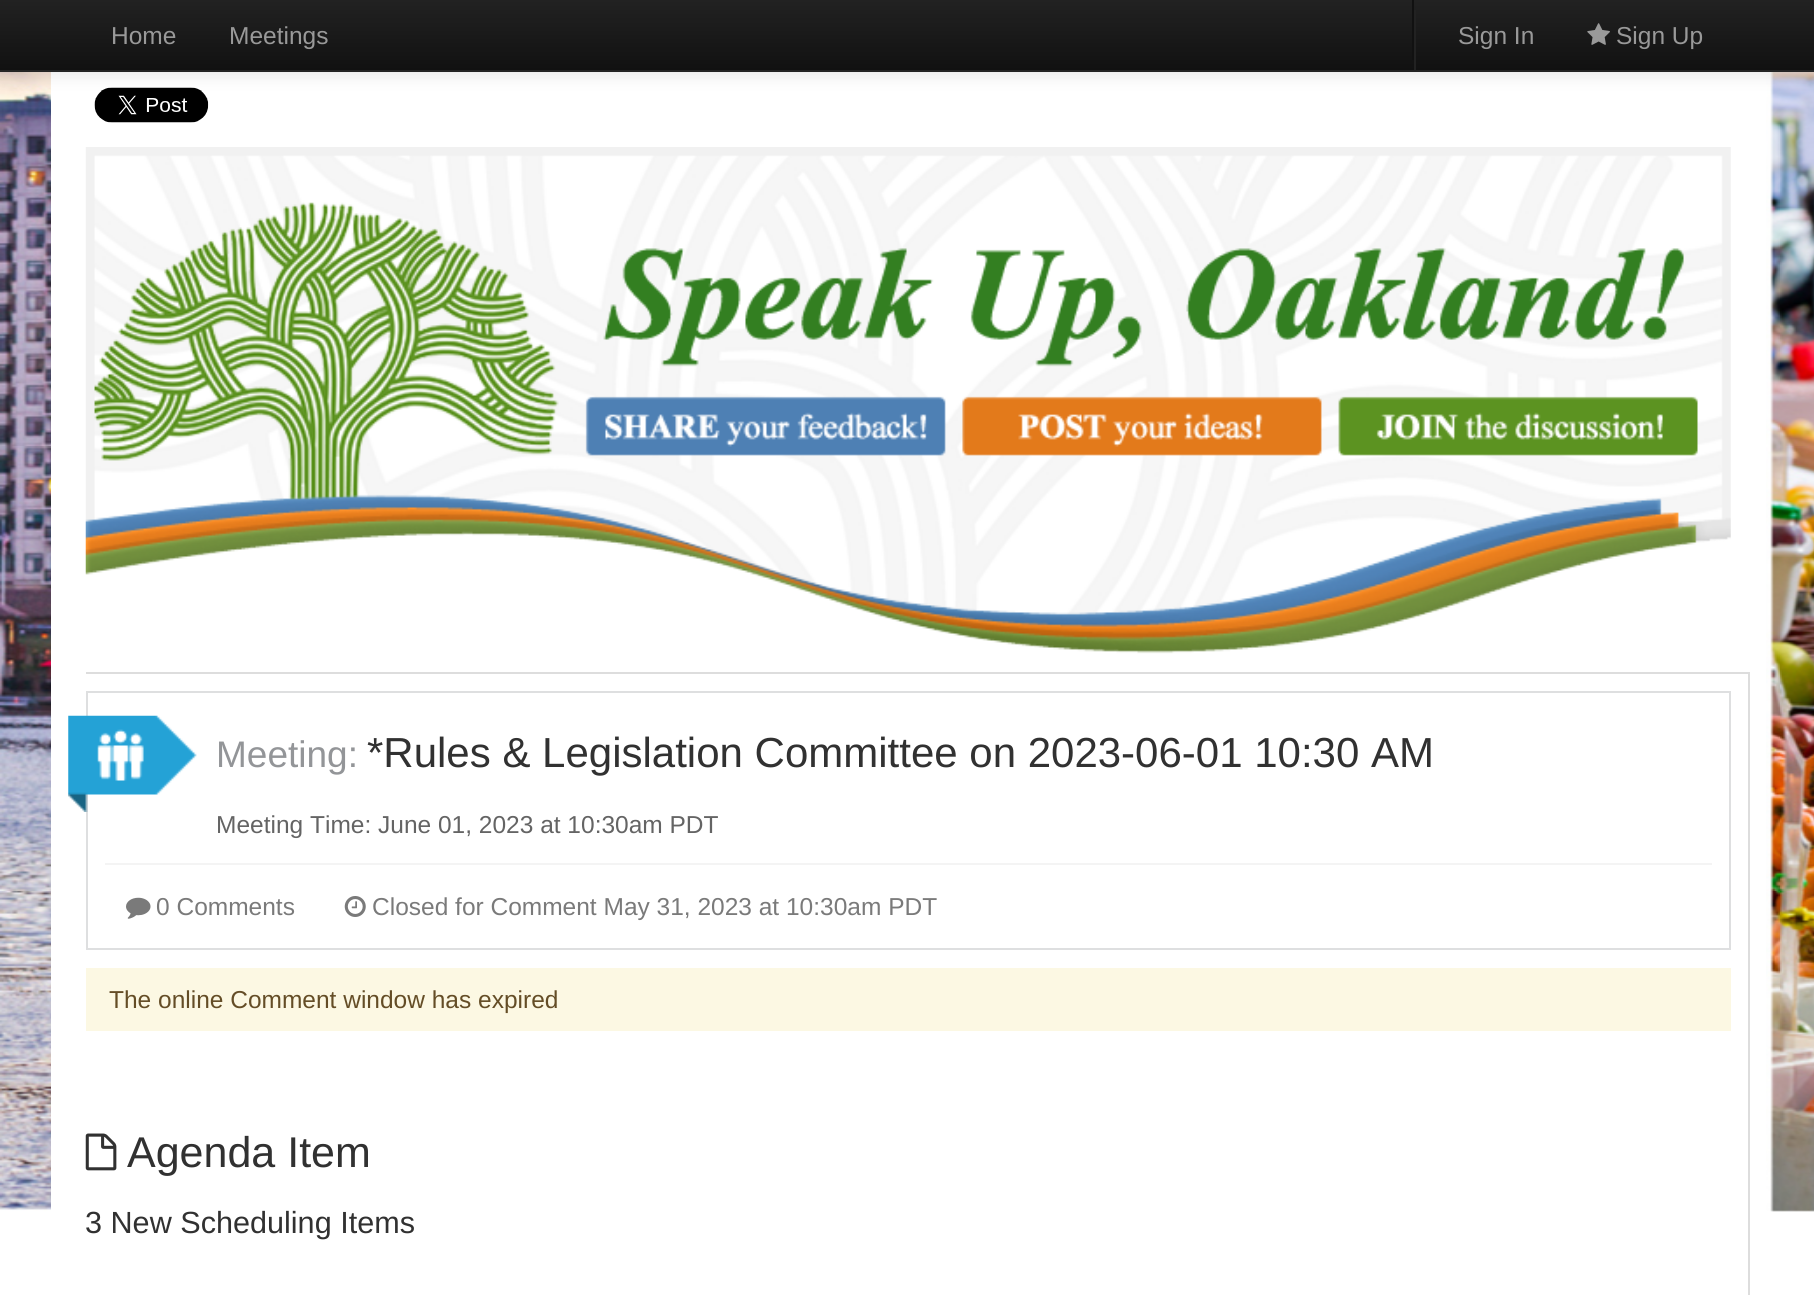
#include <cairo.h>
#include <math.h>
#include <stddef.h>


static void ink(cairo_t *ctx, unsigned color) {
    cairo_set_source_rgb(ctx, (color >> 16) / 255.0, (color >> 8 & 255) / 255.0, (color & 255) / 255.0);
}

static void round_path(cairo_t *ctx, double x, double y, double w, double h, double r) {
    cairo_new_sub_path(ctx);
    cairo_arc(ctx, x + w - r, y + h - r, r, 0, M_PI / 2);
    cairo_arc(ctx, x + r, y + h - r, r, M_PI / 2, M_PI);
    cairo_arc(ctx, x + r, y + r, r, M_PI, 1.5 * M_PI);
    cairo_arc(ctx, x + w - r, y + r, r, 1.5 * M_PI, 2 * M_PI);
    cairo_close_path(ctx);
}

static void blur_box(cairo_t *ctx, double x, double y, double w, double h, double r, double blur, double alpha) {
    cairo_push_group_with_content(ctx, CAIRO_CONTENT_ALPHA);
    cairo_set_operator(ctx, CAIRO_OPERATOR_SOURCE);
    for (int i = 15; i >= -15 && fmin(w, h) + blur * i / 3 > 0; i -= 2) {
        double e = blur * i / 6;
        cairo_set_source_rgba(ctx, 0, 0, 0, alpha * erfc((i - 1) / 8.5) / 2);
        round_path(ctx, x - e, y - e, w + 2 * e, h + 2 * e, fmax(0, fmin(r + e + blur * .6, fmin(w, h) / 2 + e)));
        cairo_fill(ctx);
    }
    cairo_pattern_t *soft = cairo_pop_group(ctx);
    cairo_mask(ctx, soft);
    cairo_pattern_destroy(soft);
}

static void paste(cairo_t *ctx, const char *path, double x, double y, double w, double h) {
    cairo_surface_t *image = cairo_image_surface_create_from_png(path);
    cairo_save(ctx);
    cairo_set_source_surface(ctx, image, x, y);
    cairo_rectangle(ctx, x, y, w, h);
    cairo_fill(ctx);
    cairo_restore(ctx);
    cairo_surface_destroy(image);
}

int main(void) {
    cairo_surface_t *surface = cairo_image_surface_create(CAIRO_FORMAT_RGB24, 1814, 1295);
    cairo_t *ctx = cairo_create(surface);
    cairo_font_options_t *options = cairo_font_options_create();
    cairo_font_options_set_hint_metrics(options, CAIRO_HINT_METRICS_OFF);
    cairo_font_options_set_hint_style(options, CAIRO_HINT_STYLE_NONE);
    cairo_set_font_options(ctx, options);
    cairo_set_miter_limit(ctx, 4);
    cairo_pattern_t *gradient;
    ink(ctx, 0xFFFFFF);
    cairo_paint(ctx);
    paste(ctx, "media/1.png", 0, 72, 1814, 1140);
    ink(ctx, 0xFFFFFF);
    cairo_rectangle(ctx, 51, 72, 1715, 1139);
    cairo_fill(ctx);
    paste(ctx, "media/3.png", 94, 87, 115, 36);
    ink(ctx, 0x000000);
    blur_box(ctx, 0, 2, 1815, 72, 0, 9, 0.1);
    gradient = cairo_pattern_create_linear(907, 0, 907, 70);
    cairo_pattern_add_color_stop_rgba(gradient, 0, 0.133, 0.133, 0.133, 1);
    cairo_pattern_add_color_stop_rgba(gradient, 1, 0.067, 0.067, 0.067, 1);
    cairo_set_source(ctx, gradient);
    cairo_pattern_destroy(gradient);
    cairo_rectangle(ctx, 0, 0, 1814, 70);
    cairo_fill(ctx);
    ink(ctx, 0x252525);
    cairo_rectangle(ctx, 0, 70, 1814, 2);
    cairo_fill(ctx);
    cairo_select_font_face(ctx, "Liberation Sans", CAIRO_FONT_SLANT_NORMAL, CAIRO_FONT_WEIGHT_NORMAL);
    cairo_set_font_size(ctx, 24.5);
    ink(ctx, 0x999999);
    cairo_move_to(ctx, 111, 44);
    cairo_show_text(ctx, "Home");
    cairo_move_to(ctx, 229, 44);
    cairo_show_text(ctx, "Meetings");
    ink(ctx, 0x222222);
    cairo_rectangle(ctx, 1414, 10, 2, 60);
    cairo_fill(ctx);
    ink(ctx, 0x111111);
    cairo_rectangle(ctx, 1412, 0, 2, 60);
    cairo_fill(ctx);
    ink(ctx, 0x999999);
    cairo_move_to(ctx, 1458, 44);
    cairo_show_text(ctx, "Sign In");
    paste(ctx, "media/2.png", 1587, 23, 23, 22);
    cairo_move_to(ctx, 1616, 44);
    cairo_show_text(ctx, "Sign Up");
    paste(ctx, "media/4.png", 85, 147, 1646, 507);
    ink(ctx, 0xDDDDDD);
    cairo_rectangle(ctx, 86, 672, 1664, 2);
    cairo_fill(ctx);
    cairo_rectangle(ctx, 1748, 672, 2, 623);
    cairo_fill(ctx);
    cairo_rectangle(ctx, 87, 692, 1643, 257);
    ink(ctx, 0xDEDFE0);
    cairo_stroke(ctx);
    paste(ctx, "media/5.png", 68, 715, 129, 97);
    cairo_set_font_size(ctx, 37);
    ink(ctx, 0x939598);
    cairo_move_to(ctx, 216, 767);
    cairo_show_text(ctx, "Meeting:");
    cairo_set_font_size(ctx, 42);
    ink(ctx, 0x313131);
    cairo_move_to(ctx, 367, 767);
    cairo_show_text(ctx, "*Rules & Legislation Committee on 2023-06-01 10:30 AM");
    cairo_set_font_size(ctx, 24.5);
    ink(ctx, 0x646464);
    cairo_move_to(ctx, 216, 833);
    cairo_show_text(ctx, "Meeting Time: June 01, 2023 at 10:30am PDT");
    ink(ctx, 0xF4F4F4);
    cairo_rectangle(ctx, 105, 863, 1607, 2);
    cairo_fill(ctx);
    paste(ctx, "media/6.png", 126, 897, 25, 22);
    ink(ctx, 0x7A7A7A);
    cairo_move_to(ctx, 156, 915);
    cairo_show_text(ctx, "0 Comments");
    paste(ctx, "media/7.png", 344, 896, 22, 21);
    cairo_move_to(ctx, 372, 915);
    cairo_show_text(ctx, "Closed for Comment May 31, 2023 at 10:30am PDT");
    ink(ctx, 0xFCF8E3);
    cairo_rectangle(ctx, 86, 968, 1645, 63);
    cairo_fill(ctx);
    ink(ctx, 0x644D26);
    cairo_move_to(ctx, 109, 1008);
    cairo_show_text(ctx, "The online Comment window has expired");
    paste(ctx, "media/8.png", 85, 1133, 32, 38);
    cairo_set_font_size(ctx, 43);
    ink(ctx, 0x313131);
    cairo_move_to(ctx, 127, 1167);
    cairo_show_text(ctx, "Agenda Item");
    cairo_set_font_size(ctx, 30.6);
    cairo_move_to(ctx, 85, 1233);
    cairo_show_text(ctx, "3 New Scheduling Items");
    cairo_surface_write_to_png(surface, "image.png");
    cairo_font_options_destroy(options);
    cairo_destroy(ctx);
    cairo_surface_destroy(surface);
    return 0;
}
